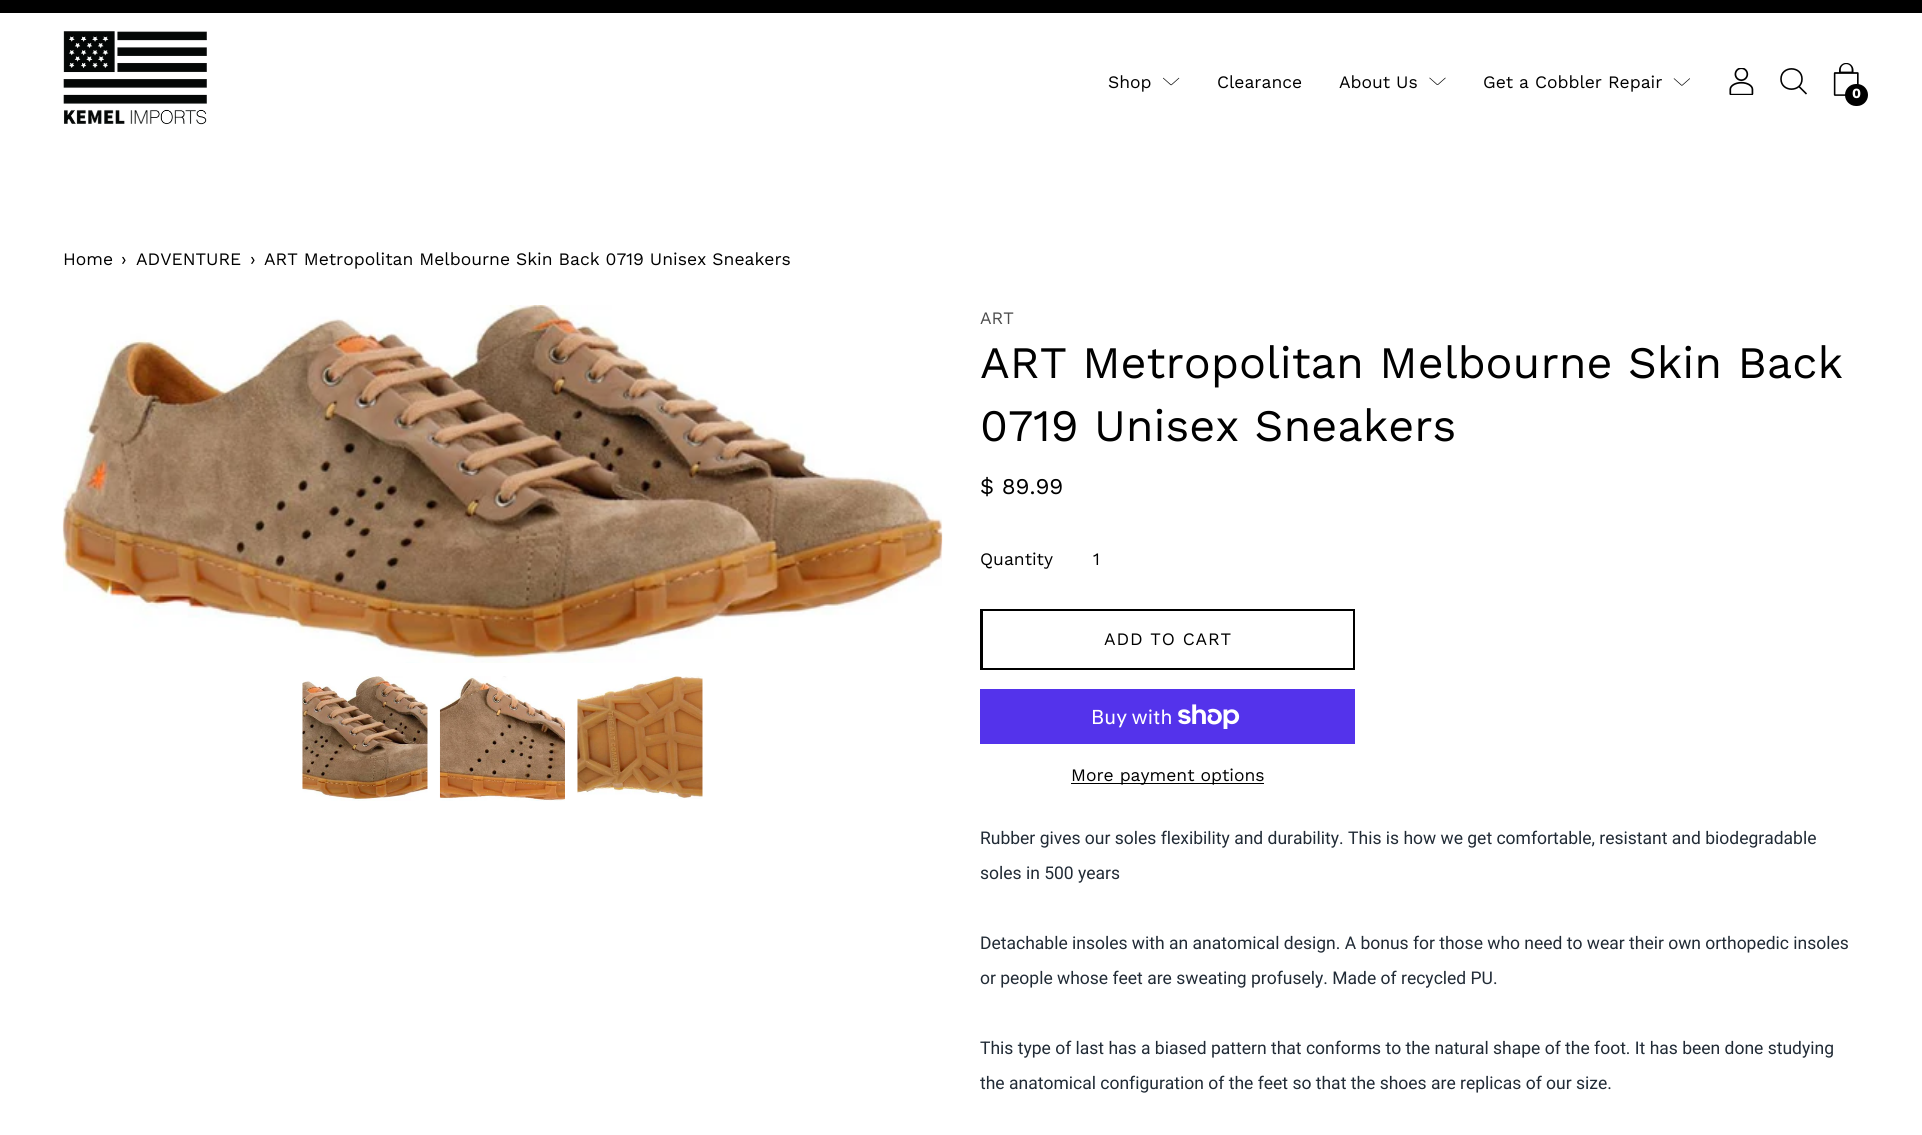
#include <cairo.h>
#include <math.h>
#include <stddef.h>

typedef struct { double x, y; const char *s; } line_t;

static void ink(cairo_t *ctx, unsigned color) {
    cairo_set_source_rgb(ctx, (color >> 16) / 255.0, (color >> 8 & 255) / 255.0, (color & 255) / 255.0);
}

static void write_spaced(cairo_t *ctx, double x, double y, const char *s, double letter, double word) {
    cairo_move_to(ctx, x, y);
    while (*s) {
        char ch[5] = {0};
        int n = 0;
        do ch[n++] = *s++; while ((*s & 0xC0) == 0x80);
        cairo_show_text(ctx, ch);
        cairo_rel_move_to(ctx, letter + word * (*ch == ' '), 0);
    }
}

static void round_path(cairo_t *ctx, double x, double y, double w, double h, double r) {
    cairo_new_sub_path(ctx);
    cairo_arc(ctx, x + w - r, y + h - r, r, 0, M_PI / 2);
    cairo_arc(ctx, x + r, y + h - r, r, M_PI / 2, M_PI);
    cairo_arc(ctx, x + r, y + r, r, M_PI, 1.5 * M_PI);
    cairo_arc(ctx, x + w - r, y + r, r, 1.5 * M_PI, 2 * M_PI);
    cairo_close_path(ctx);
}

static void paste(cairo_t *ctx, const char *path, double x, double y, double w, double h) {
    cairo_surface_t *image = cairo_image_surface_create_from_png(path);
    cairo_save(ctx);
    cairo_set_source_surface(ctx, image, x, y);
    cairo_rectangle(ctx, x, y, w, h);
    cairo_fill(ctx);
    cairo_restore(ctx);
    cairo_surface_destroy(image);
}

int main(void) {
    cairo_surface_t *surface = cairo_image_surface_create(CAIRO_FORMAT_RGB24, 1922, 1135);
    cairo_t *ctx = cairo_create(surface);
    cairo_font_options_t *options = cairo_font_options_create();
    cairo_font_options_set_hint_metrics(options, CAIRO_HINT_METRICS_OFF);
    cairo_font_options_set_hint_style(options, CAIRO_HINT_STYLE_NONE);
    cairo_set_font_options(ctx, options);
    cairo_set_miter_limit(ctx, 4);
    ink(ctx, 0xFFFFFF);
    cairo_paint(ctx);
    ink(ctx, 0x000000);
    cairo_rectangle(ctx, 0, 0, 1922, 13);
    cairo_fill(ctx);
    paste(ctx, "media/1.png", 63, 31, 144, 94);
    cairo_select_font_face(ctx, "Work Sans", CAIRO_FONT_SLANT_NORMAL, CAIRO_FONT_WEIGHT_NORMAL);
    cairo_set_font_size(ctx, 17.5);
    cairo_move_to(ctx, 1108, 88);
    cairo_show_text(ctx, "Shop");
    paste(ctx, "media/2.png", 1163, 77, 17, 9);
    cairo_move_to(ctx, 1217, 88);
    cairo_show_text(ctx, "Clearance");
    cairo_move_to(ctx, 1339, 88);
    cairo_show_text(ctx, "About Us");
    paste(ctx, "media/3.png", 1429, 77, 17, 8);
    cairo_move_to(ctx, 1483, 88);
    cairo_show_text(ctx, "Get a Cobbler Repair");
    paste(ctx, "media/4.png", 1673, 78, 17, 8);
    paste(ctx, "media/5.png", 1729, 68, 25, 27);
    cairo_new_path(ctx);
    cairo_move_to(ctx, 1802, 79);
    cairo_curve_to(ctx, 1802, 92.5, 1781, 92.5, 1781, 79);
    cairo_curve_to(ctx, 1781, 65.5, 1802, 65.5, 1802, 79);
    cairo_close_path(ctx);
    cairo_move_to(ctx, 1799, 86.5);
    cairo_line_to(ctx, 1806.5, 94);
    cairo_set_line_width(ctx, 1.6);
    cairo_stroke(ctx);
    paste(ctx, "media/6.png", 1833, 63, 26, 33);
    round_path(ctx, 1845, 84, 23, 22, 11);
    cairo_fill(ctx);
    cairo_select_font_face(ctx, "Work Sans", CAIRO_FONT_SLANT_NORMAL, CAIRO_FONT_WEIGHT_BOLD);
    cairo_set_font_size(ctx, 14);
    ink(ctx, 0xFFFFFF);
    cairo_move_to(ctx, 1852, 98);
    cairo_show_text(ctx, "0");
    cairo_select_font_face(ctx, "Work Sans", CAIRO_FONT_SLANT_NORMAL, CAIRO_FONT_WEIGHT_NORMAL);
    cairo_set_font_size(ctx, 17.5);
    ink(ctx, 0x000000);
    {
        static const line_t items[] = {
            {63, 265, "Home"},
            {121, 265, "›"},
            {136, 265, "ADVENTURE"},
            {250, 265, "›"},
            {264, 265, "ART Metropolitan Melbourne Skin Back 0719 Unisex Sneakers"},
        };
        for (size_t i = 0; i < sizeof items / sizeof *items; i++) {
            cairo_move_to(ctx, items[i].x, items[i].y);
            cairo_show_text(ctx, items[i].s);
        }
    }
    paste(ctx, "media/7.png", 62, 305, 881, 358);
    paste(ctx, "media/8.png", 302, 676, 126, 125);
    paste(ctx, "media/9.png", 439, 676, 126, 125);
    paste(ctx, "media/10.png", 577, 676, 126, 123);
    ink(ctx, 0x4D4D4D);
    cairo_move_to(ctx, 980, 324);
    cairo_show_text(ctx, "ART");
    cairo_set_font_size(ctx, 45);
    ink(ctx, 0x000000);
    cairo_move_to(ctx, 980, 378);
    cairo_show_text(ctx, "ART Metropolitan Melbourne Skin Back");
    cairo_move_to(ctx, 980, 441);
    cairo_show_text(ctx, "0719 Unisex Sneakers");
    cairo_set_font_size(ctx, 22.5);
    cairo_move_to(ctx, 980, 494);
    cairo_show_text(ctx, "$ 89.99");
    cairo_set_font_size(ctx, 17.5);
    cairo_move_to(ctx, 980, 565);
    cairo_show_text(ctx, "Quantity");
    cairo_move_to(ctx, 1093, 565);
    cairo_show_text(ctx, "1");
    cairo_rectangle(ctx, 980, 609, 375, 61);
    cairo_fill(ctx);
    ink(ctx, 0xFFFFFF);
    cairo_rectangle(ctx, 983, 611, 370, 57);
    cairo_fill(ctx);
    ink(ctx, 0x000000);
    write_spaced(ctx, 1104, 645, "ADD TO CART", 0.9, 0);
    ink(ctx, 0x5433EB);
    cairo_rectangle(ctx, 980, 689, 375, 55);
    cairo_fill(ctx);
    cairo_select_font_face(ctx, "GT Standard", CAIRO_FONT_SLANT_NORMAL, CAIRO_FONT_WEIGHT_NORMAL);
    cairo_set_font_size(ctx, 20);
    ink(ctx, 0xFFFFFF);
    cairo_move_to(ctx, 1091, 724);
    cairo_show_text(ctx, "Buy with");
    paste(ctx, "media/11.png", 1178, 704, 62, 25);
    ink(ctx, 0x000000);
    cairo_rectangle(ctx, 1071, 783, 193, 1);
    cairo_fill(ctx);
    cairo_select_font_face(ctx, "Work Sans", CAIRO_FONT_SLANT_NORMAL, CAIRO_FONT_WEIGHT_NORMAL);
    cairo_set_font_size(ctx, 17.5);
    cairo_move_to(ctx, 1071, 781);
    cairo_show_text(ctx, "More payment options");
    cairo_select_font_face(ctx, "Roboto", CAIRO_FONT_SLANT_NORMAL, CAIRO_FONT_WEIGHT_NORMAL);
    ink(ctx, 0x212B36);
    {
        static const line_t items[] = {
            {980, 844, "Rubber gives our soles flexibility and durability. This is how we get comfortable, resistant and biodegradable"},
            {980, 879, "soles in 500 years"},
            {980, 949, "Detachable insoles with an anatomical design. A bonus for those who need to wear their own orthopedic insoles"},
            {980, 984, "or people whose feet are sweating profusely. Made of recycled PU."},
            {980, 1054, "This type of last has a biased pattern that conforms to the natural shape of the foot. It has been done studying"},
            {980, 1089, "the anatomical configuration of the feet so that the shoes are replicas of our size."},
        };
        for (size_t i = 0; i < sizeof items / sizeof *items; i++) {
            cairo_move_to(ctx, items[i].x, items[i].y);
            cairo_show_text(ctx, items[i].s);
        }
    }
    cairo_surface_write_to_png(surface, "image.png");
    cairo_font_options_destroy(options);
    cairo_destroy(ctx);
    cairo_surface_destroy(surface);
    return 0;
}
